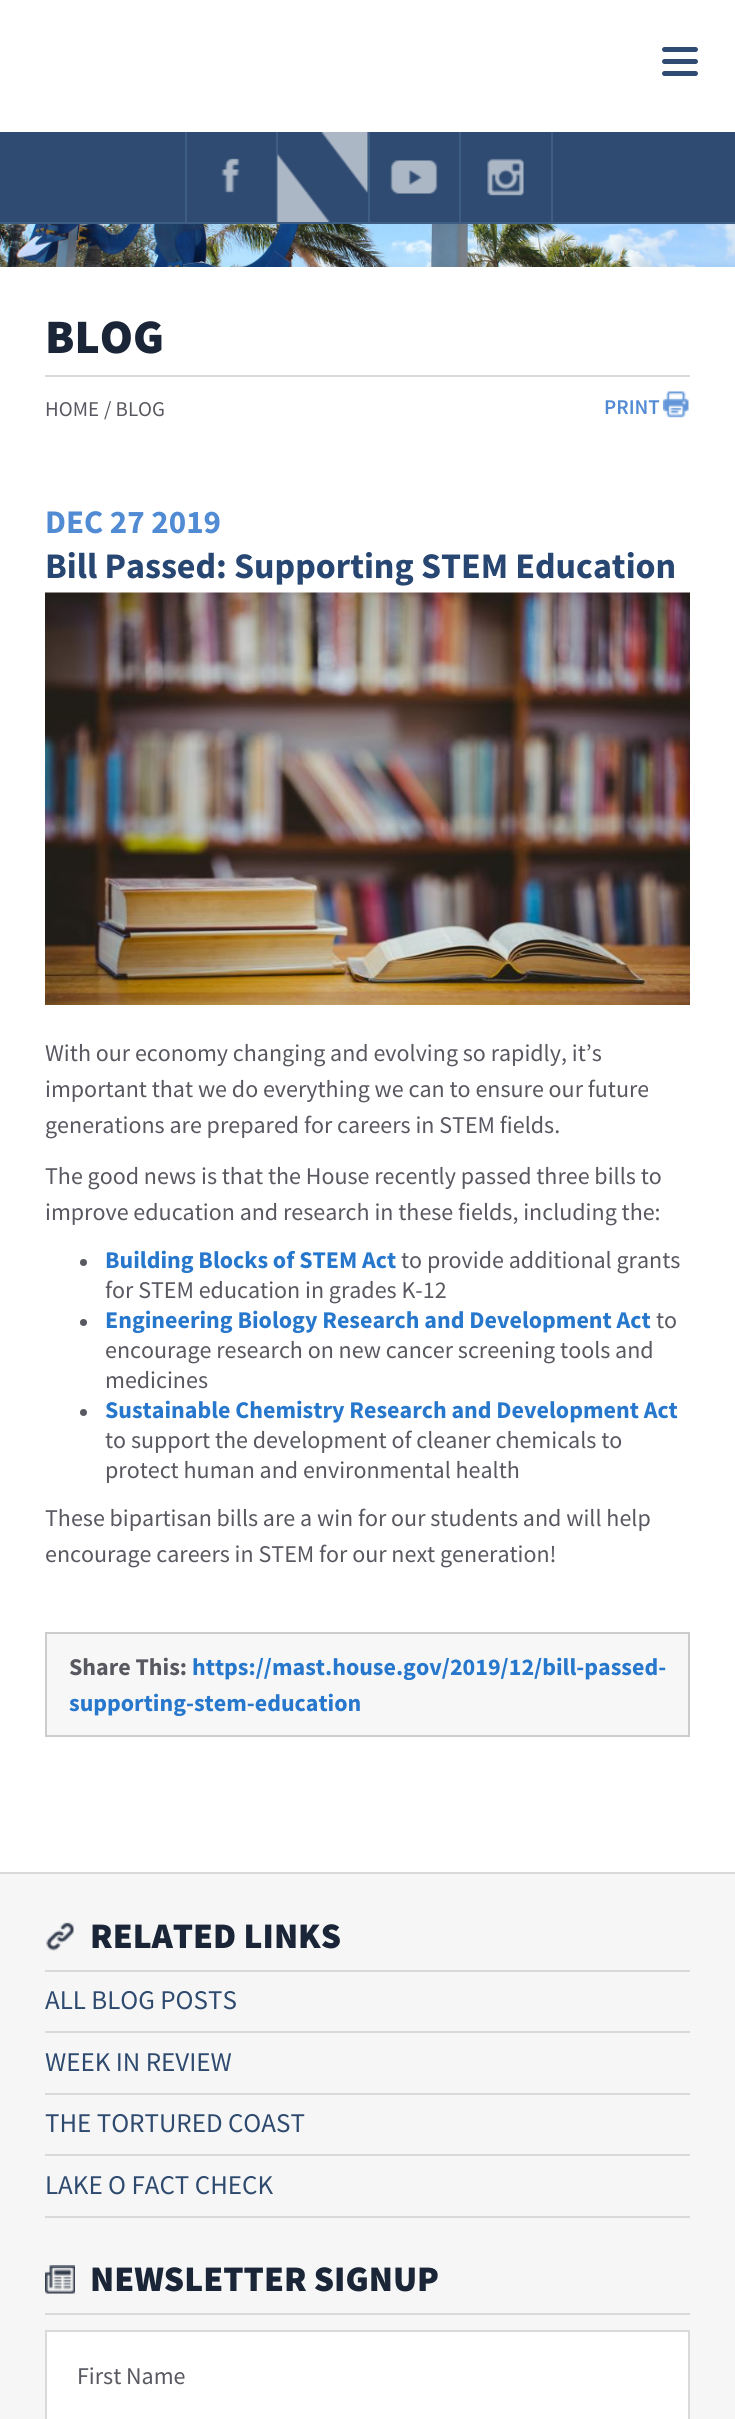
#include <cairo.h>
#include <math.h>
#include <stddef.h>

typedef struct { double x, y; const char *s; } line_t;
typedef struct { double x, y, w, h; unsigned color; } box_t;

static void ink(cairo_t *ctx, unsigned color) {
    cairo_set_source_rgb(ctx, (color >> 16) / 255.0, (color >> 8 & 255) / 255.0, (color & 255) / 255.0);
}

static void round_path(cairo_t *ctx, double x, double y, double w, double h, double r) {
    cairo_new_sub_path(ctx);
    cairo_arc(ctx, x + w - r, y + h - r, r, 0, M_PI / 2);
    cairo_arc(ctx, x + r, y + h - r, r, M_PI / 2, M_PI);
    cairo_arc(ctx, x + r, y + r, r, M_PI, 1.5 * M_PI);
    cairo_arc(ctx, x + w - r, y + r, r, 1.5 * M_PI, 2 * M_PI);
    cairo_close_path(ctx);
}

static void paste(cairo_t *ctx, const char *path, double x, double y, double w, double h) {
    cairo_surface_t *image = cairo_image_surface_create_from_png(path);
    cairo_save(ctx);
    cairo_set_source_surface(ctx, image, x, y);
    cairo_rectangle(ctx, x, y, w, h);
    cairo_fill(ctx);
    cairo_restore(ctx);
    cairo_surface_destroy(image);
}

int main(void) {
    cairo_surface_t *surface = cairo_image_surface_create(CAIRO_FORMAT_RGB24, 735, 2419);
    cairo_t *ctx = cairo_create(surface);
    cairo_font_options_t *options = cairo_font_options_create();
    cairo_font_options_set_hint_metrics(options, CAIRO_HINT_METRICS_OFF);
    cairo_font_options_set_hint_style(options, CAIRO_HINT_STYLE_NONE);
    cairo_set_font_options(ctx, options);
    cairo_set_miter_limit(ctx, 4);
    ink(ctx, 0xFFFFFF);
    cairo_paint(ctx);
    paste(ctx, "media/1.png", 0, 224, 735, 43);
    ink(ctx, 0x2F4B71);
    round_path(ctx, 662, 47, 36, 5, 2.5);
    cairo_fill(ctx);
    round_path(ctx, 662, 59, 36, 5, 2.5);
    cairo_fill(ctx);
    round_path(ctx, 662, 71, 36, 5, 2.5);
    cairo_fill(ctx);
    {
        static const box_t items[] = {
            {0, 132, 735, 90, 0x2F4B71},
            {0, 222, 735, 2, 0x3E5D83},
            {276, 132, 2, 90, 0x3E5D83},
            {185, 132, 2, 90, 0x3E5D83},
        };
        for (size_t i = 0; i < sizeof items / sizeof *items; i++) {
            ink(ctx, items[i].color);
            cairo_rectangle(ctx, items[i].x, items[i].y, items[i].w, items[i].h);
            cairo_fill(ctx);
        }
    }
    paste(ctx, "media/2.png", 221, 158, 19, 35);
    cairo_rectangle(ctx, 368, 132, 2, 90);
    cairo_fill(ctx);
    paste(ctx, "media/3.png", 277, 132, 91, 90);
    cairo_rectangle(ctx, 459, 132, 2, 90);
    cairo_fill(ctx);
    paste(ctx, "media/4.png", 390, 160, 48, 34);
    cairo_rectangle(ctx, 551, 132, 2, 90);
    cairo_fill(ctx);
    paste(ctx, "media/5.png", 487, 158, 37, 38);
    ink(ctx, 0xD9D9D9);
    cairo_rectangle(ctx, 45, 375, 645, 2);
    cairo_fill(ctx);
    cairo_select_font_face(ctx, "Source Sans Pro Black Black", CAIRO_FONT_SLANT_NORMAL, CAIRO_FONT_WEIGHT_NORMAL);
    cairo_set_font_size(ctx, 48);
    ink(ctx, 0x1A2638);
    cairo_move_to(ctx, 45, 353);
    cairo_show_text(ctx, "BLOG");
    cairo_select_font_face(ctx, "Source Sans Pro", CAIRO_FONT_SLANT_NORMAL, CAIRO_FONT_WEIGHT_NORMAL);
    cairo_set_font_size(ctx, 21);
    ink(ctx, 0x585861);
    cairo_move_to(ctx, 45, 416);
    cairo_show_text(ctx, "HOME");
    cairo_move_to(ctx, 104, 416);
    cairo_show_text(ctx, "/ BLOG");
    paste(ctx, "media/6.png", 663, 391, 26, 27);
    cairo_select_font_face(ctx, "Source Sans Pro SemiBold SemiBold", CAIRO_FONT_SLANT_NORMAL, CAIRO_FONT_WEIGHT_NORMAL);
    ink(ctx, 0x518BD4);
    cairo_move_to(ctx, 604, 414);
    cairo_show_text(ctx, "PRINT");
    cairo_select_font_face(ctx, "Source Sans Pro", CAIRO_FONT_SLANT_NORMAL, CAIRO_FONT_WEIGHT_BOLD);
    cairo_set_font_size(ctx, 33);
    cairo_move_to(ctx, 45, 533);
    cairo_show_text(ctx, "DEC 27 2019");
    cairo_set_font_size(ctx, 36);
    ink(ctx, 0x274671);
    cairo_move_to(ctx, 45, 578);
    cairo_show_text(ctx, "Bill Passed: Supporting STEM Education");
    paste(ctx, "media/7.png", 45, 592, 645, 413);
    cairo_select_font_face(ctx, "Source Sans Pro", CAIRO_FONT_SLANT_NORMAL, CAIRO_FONT_WEIGHT_NORMAL);
    cairo_set_font_size(ctx, 24);
    ink(ctx, 0x585861);
    {
        static const line_t items[] = {
            {45, 1061, "With our economy changing and evolving so rapidly, it’s"},
            {45, 1097, "important that we do everything we can to ensure our future"},
            {45, 1133, "generations are prepared for careers in STEM fields."},
            {45, 1184, "The good news is that the House recently passed three bills to"},
            {45, 1220, "improve education and research in these fields, including the:"},
        };
        for (size_t i = 0; i < sizeof items / sizeof *items; i++) {
            cairo_move_to(ctx, items[i].x, items[i].y);
            cairo_show_text(ctx, items[i].s);
        }
    }
    cairo_new_path(ctx);
    cairo_arc(ctx, 83.5, 1262.5, 3.5, 0, 2 * M_PI);
    cairo_fill(ctx);
    cairo_select_font_face(ctx, "Source Sans Pro", CAIRO_FONT_SLANT_NORMAL, CAIRO_FONT_WEIGHT_BOLD);
    ink(ctx, 0x2778CC);
    cairo_move_to(ctx, 105, 1268);
    cairo_show_text(ctx, "Building Blocks of STEM Act");
    cairo_select_font_face(ctx, "Source Sans Pro", CAIRO_FONT_SLANT_NORMAL, CAIRO_FONT_WEIGHT_NORMAL);
    ink(ctx, 0x585861);
    cairo_move_to(ctx, 401, 1268);
    cairo_show_text(ctx, "to provide additional grants");
    cairo_move_to(ctx, 105, 1298);
    cairo_show_text(ctx, "for STEM education in grades K-12");
    cairo_new_path(ctx);
    cairo_arc(ctx, 83.5, 1322.5, 3.5, 0, 2 * M_PI);
    cairo_fill(ctx);
    cairo_select_font_face(ctx, "Source Sans Pro", CAIRO_FONT_SLANT_NORMAL, CAIRO_FONT_WEIGHT_BOLD);
    ink(ctx, 0x2778CC);
    cairo_move_to(ctx, 105, 1328);
    cairo_show_text(ctx, "Engineering Biology Research and Development Act");
    cairo_select_font_face(ctx, "Source Sans Pro", CAIRO_FONT_SLANT_NORMAL, CAIRO_FONT_WEIGHT_NORMAL);
    ink(ctx, 0x585861);
    {
        static const line_t items[] = {
            {656, 1328, "to"},
            {105, 1358, "encourage research on new cancer screening tools and"},
            {105, 1388, "medicines"},
        };
        for (size_t i = 0; i < sizeof items / sizeof *items; i++) {
            cairo_move_to(ctx, items[i].x, items[i].y);
            cairo_show_text(ctx, items[i].s);
        }
    }
    cairo_new_path(ctx);
    cairo_arc(ctx, 83.5, 1412.5, 3.5, 0, 2 * M_PI);
    cairo_fill(ctx);
    cairo_select_font_face(ctx, "Source Sans Pro", CAIRO_FONT_SLANT_NORMAL, CAIRO_FONT_WEIGHT_BOLD);
    ink(ctx, 0x2778CC);
    cairo_move_to(ctx, 105, 1418);
    cairo_show_text(ctx, "Sustainable Chemistry Research and Development Act");
    cairo_select_font_face(ctx, "Source Sans Pro", CAIRO_FONT_SLANT_NORMAL, CAIRO_FONT_WEIGHT_NORMAL);
    ink(ctx, 0x585861);
    {
        static const line_t items[] = {
            {105, 1448, "to support the development of cleaner chemicals to"},
            {105, 1478, "protect human and environmental health"},
            {45, 1526, "These bipartisan bills are a win for our students and will help"},
            {45, 1562, "encourage careers in STEM for our next generation!"},
        };
        for (size_t i = 0; i < sizeof items / sizeof *items; i++) {
            cairo_move_to(ctx, items[i].x, items[i].y);
            cairo_show_text(ctx, items[i].s);
        }
    }
    ink(ctx, 0xF7F7F7);
    cairo_rectangle(ctx, 46, 1633, 643, 103);
    cairo_fill_preserve(ctx);
    ink(ctx, 0xCCCCCC);
    cairo_stroke(ctx);
    cairo_select_font_face(ctx, "Source Sans Pro", CAIRO_FONT_SLANT_NORMAL, CAIRO_FONT_WEIGHT_BOLD);
    ink(ctx, 0x585861);
    cairo_move_to(ctx, 69, 1675);
    cairo_show_text(ctx, "Share This:");
    ink(ctx, 0x2778CC);
    cairo_move_to(ctx, 192, 1675);
    cairo_show_text(ctx, "https://mast.house.gov/2019/12/bill-passed-");
    cairo_move_to(ctx, 69, 1711);
    cairo_show_text(ctx, "supporting-stem-education");
    ink(ctx, 0xF6F6F6);
    cairo_rectangle(ctx, 0, 1874, 735, 545);
    cairo_fill(ctx);
    ink(ctx, 0xD9D9D9);
    cairo_rectangle(ctx, 0, 1872, 735, 2);
    cairo_fill(ctx);
    paste(ctx, "media/8.png", 46, 1922, 28, 29);
    cairo_rectangle(ctx, 45, 1970, 645, 2);
    cairo_fill(ctx);
    cairo_select_font_face(ctx, "Source Sans Pro Black Black", CAIRO_FONT_SLANT_NORMAL, CAIRO_FONT_WEIGHT_NORMAL);
    cairo_set_font_size(ctx, 36);
    ink(ctx, 0x1A2638);
    cairo_move_to(ctx, 90, 1948);
    cairo_show_text(ctx, "RELATED LINKS");
    ink(ctx, 0xD9D9D9);
    cairo_rectangle(ctx, 45, 2031, 645, 2);
    cairo_fill(ctx);
    cairo_select_font_face(ctx, "Source Sans Pro", CAIRO_FONT_SLANT_NORMAL, CAIRO_FONT_WEIGHT_NORMAL);
    cairo_set_font_size(ctx, 27);
    ink(ctx, 0x2F4A6F);
    cairo_move_to(ctx, 45, 2009);
    cairo_show_text(ctx, "ALL BLOG POSTS");
    ink(ctx, 0xD9D9D9);
    cairo_rectangle(ctx, 45, 2093, 645, 2);
    cairo_fill(ctx);
    ink(ctx, 0x2F4A6F);
    cairo_move_to(ctx, 45, 2071);
    cairo_show_text(ctx, "WEEK IN REVIEW");
    ink(ctx, 0xD9D9D9);
    cairo_rectangle(ctx, 45, 2154, 645, 2);
    cairo_fill(ctx);
    ink(ctx, 0x2F4A6F);
    cairo_move_to(ctx, 45, 2132);
    cairo_show_text(ctx, "THE TORTURED COAST");
    ink(ctx, 0xD9D9D9);
    cairo_rectangle(ctx, 45, 2216, 645, 2);
    cairo_fill(ctx);
    ink(ctx, 0x2F4A6F);
    cairo_move_to(ctx, 45, 2194);
    cairo_show_text(ctx, "LAKE O FACT CHECK");
    paste(ctx, "media/9.png", 45, 2265, 30, 29);
    ink(ctx, 0xD9D9D9);
    cairo_rectangle(ctx, 45, 2313, 645, 2);
    cairo_fill(ctx);
    cairo_select_font_face(ctx, "Source Sans Pro Black Black", CAIRO_FONT_SLANT_NORMAL, CAIRO_FONT_WEIGHT_NORMAL);
    cairo_set_font_size(ctx, 36);
    ink(ctx, 0x1A2638);
    cairo_move_to(ctx, 90, 2291);
    cairo_show_text(ctx, "NEWSLETTER SIGNUP");
    ink(ctx, 0xFFFFFF);
    cairo_rectangle(ctx, 46, 2331, 643, 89);
    cairo_fill_preserve(ctx);
    ink(ctx, 0xD9D9D9);
    cairo_stroke(ctx);
    cairo_select_font_face(ctx, "Source Sans Pro", CAIRO_FONT_SLANT_NORMAL, CAIRO_FONT_WEIGHT_NORMAL);
    cairo_set_font_size(ctx, 24);
    ink(ctx, 0x585861);
    cairo_move_to(ctx, 77, 2384);
    cairo_show_text(ctx, "First Name");
    cairo_surface_write_to_png(surface, "image.png");
    cairo_font_options_destroy(options);
    cairo_destroy(ctx);
    cairo_surface_destroy(surface);
    return 0;
}
